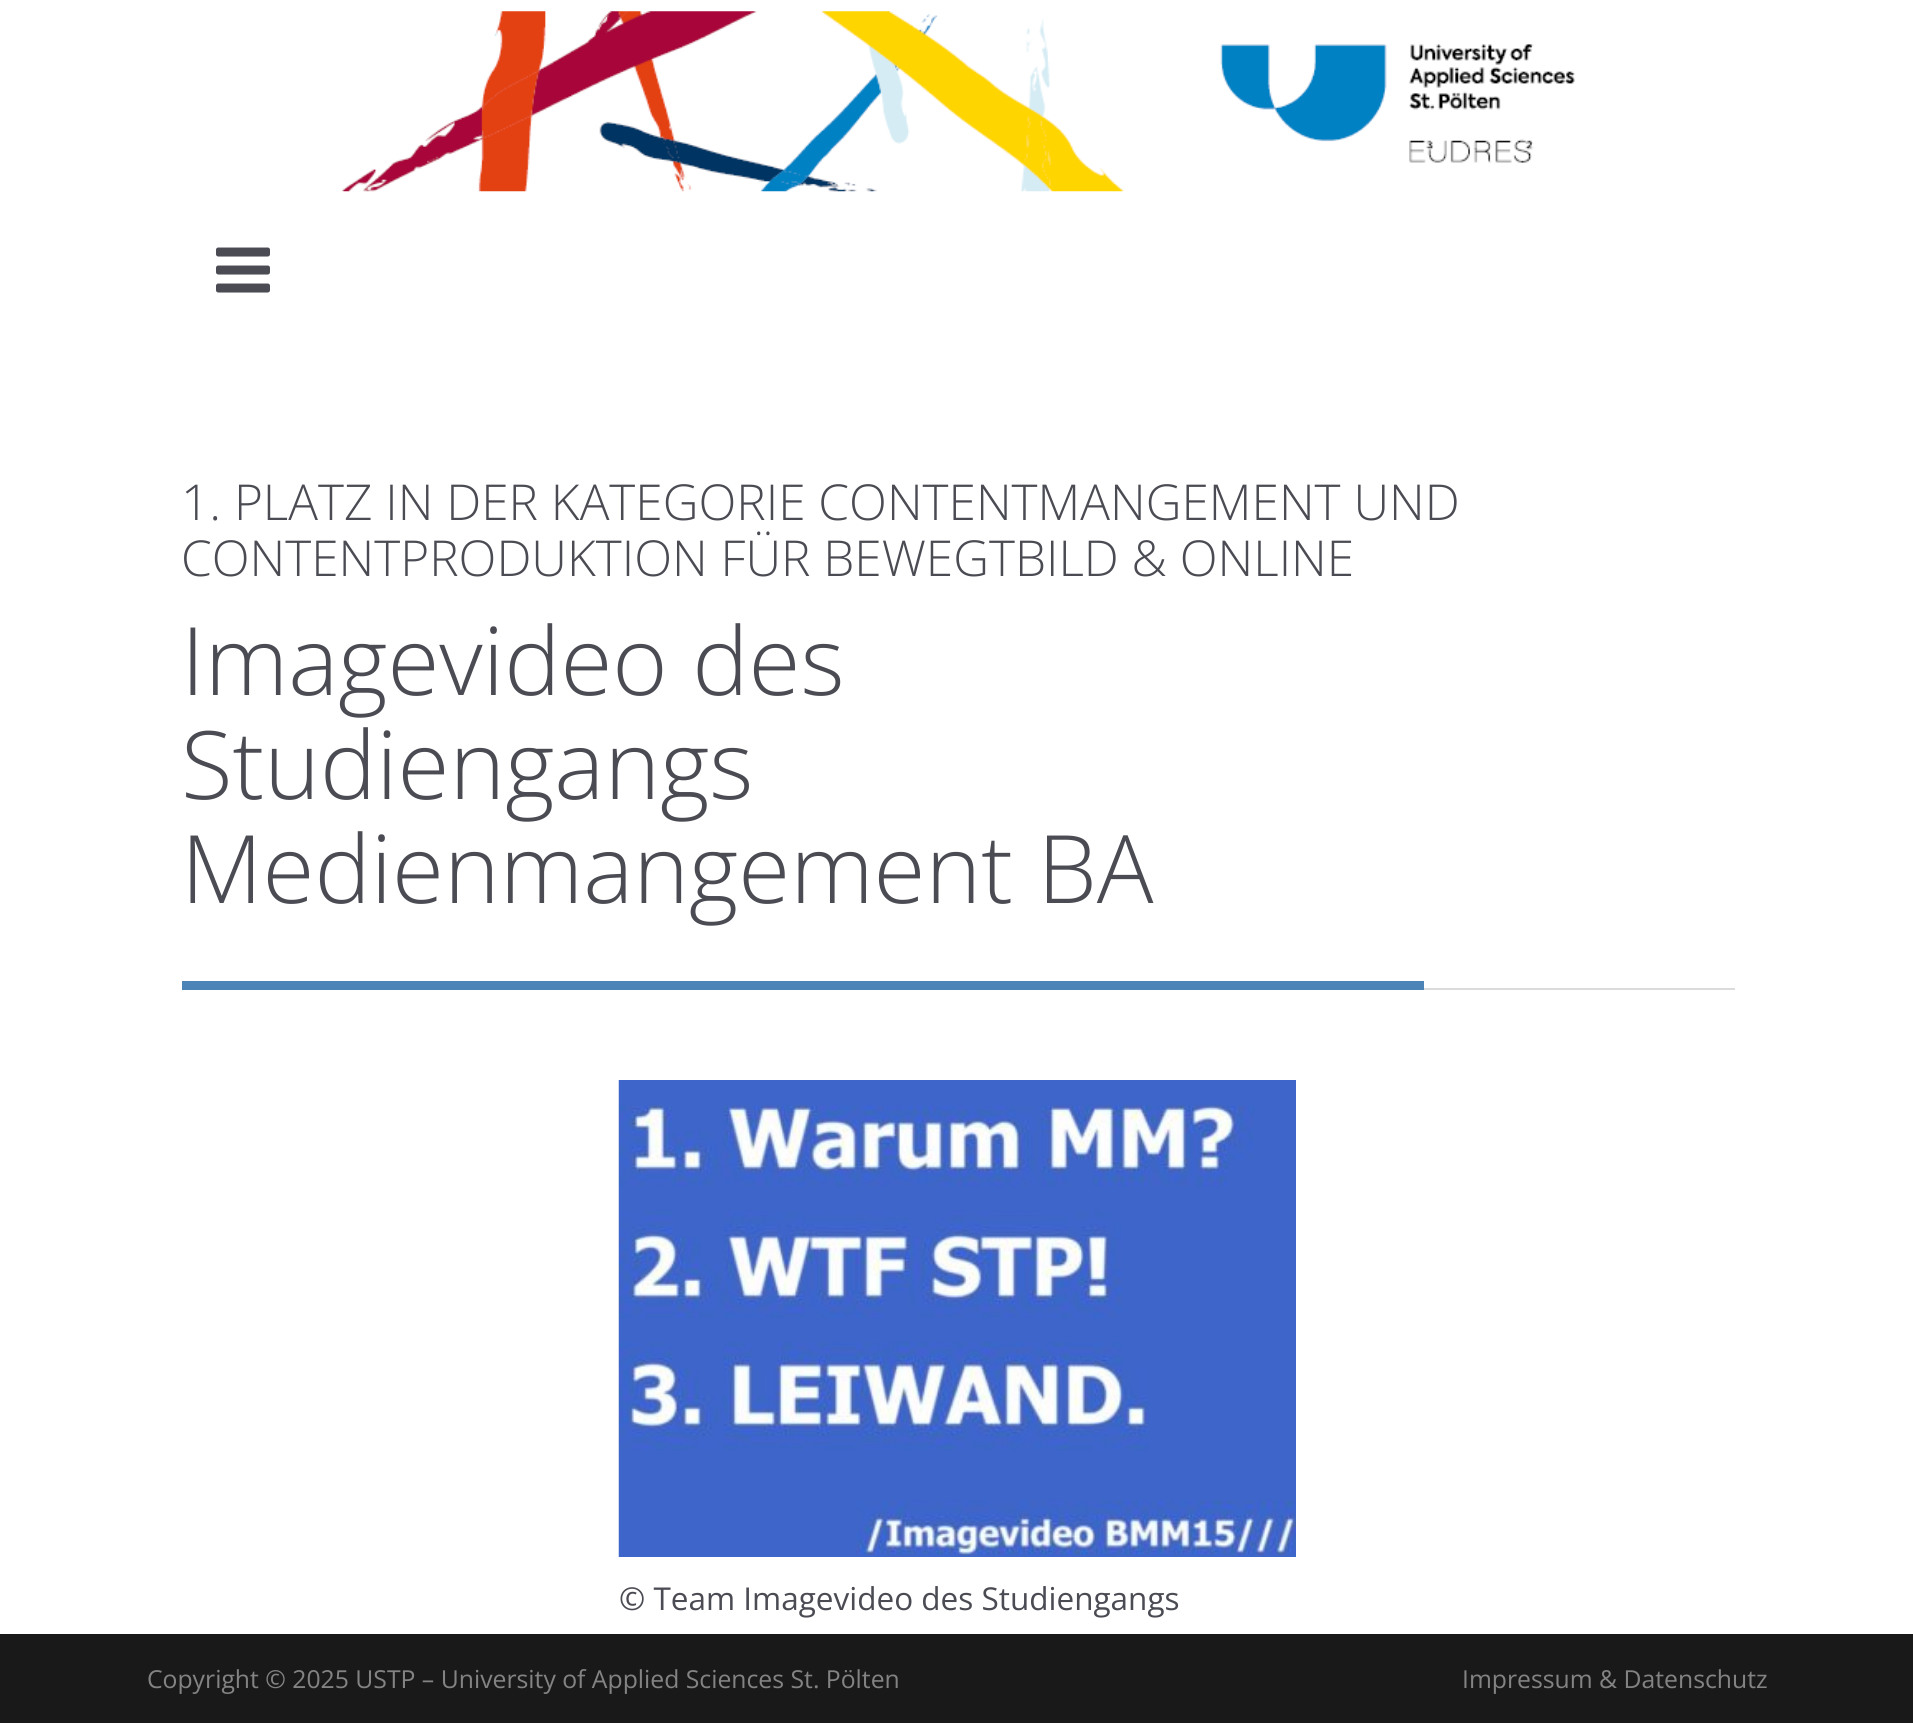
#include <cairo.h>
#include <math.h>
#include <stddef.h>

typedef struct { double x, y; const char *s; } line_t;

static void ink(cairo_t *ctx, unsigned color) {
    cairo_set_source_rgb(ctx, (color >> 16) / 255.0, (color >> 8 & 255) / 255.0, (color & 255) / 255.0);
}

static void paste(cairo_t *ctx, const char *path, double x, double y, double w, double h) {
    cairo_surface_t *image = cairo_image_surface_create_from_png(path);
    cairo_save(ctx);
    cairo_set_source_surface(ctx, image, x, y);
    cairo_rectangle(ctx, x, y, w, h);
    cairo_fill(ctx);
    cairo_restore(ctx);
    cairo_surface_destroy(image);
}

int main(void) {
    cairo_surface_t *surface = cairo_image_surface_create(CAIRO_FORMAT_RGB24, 1913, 1723);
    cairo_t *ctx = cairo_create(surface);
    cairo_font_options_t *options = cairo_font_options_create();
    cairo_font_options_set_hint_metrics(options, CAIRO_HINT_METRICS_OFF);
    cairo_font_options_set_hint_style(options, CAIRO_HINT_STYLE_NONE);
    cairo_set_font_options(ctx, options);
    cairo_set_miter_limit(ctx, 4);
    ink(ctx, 0xFFFFFF);
    cairo_paint(ctx);
    paste(ctx, "media/1.png", 342, 11, 1234, 181);
    paste(ctx, "media/2.png", 216, 247, 54, 46);
    ink(ctx, 0xDBDBDD);
    cairo_rectangle(ctx, 1424, 988, 311, 2);
    cairo_fill(ctx);
    cairo_select_font_face(ctx, "Open Sans Light", CAIRO_FONT_SLANT_NORMAL, CAIRO_FONT_WEIGHT_NORMAL);
    cairo_set_font_size(ctx, 49.5);
    ink(ctx, 0x4A4B53);
    cairo_move_to(ctx, 181, 520);
    cairo_show_text(ctx, "1. PLATZ IN DER KATEGORIE CONTENTMANGEMENT UND");
    cairo_move_to(ctx, 181, 576);
    cairo_show_text(ctx, "CONTENTPRODUKTION FÜR BEWEGTBILD & ONLINE");
    cairo_set_font_size(ctx, 94.5);
    {
        static const line_t items[] = {
            {181, 695, "Imagevideo des"},
            {181, 799, "Studiengangs"},
            {181, 903, "Medienmangement BA"},
        };
        for (size_t i = 0; i < sizeof items / sizeof *items; i++) {
            cairo_move_to(ctx, items[i].x, items[i].y);
            cairo_show_text(ctx, items[i].s);
        }
    }
    ink(ctx, 0x4C84B8);
    cairo_rectangle(ctx, 182, 981, 1242, 9);
    cairo_fill(ctx);
    paste(ctx, "media/3.png", 618, 1080, 678, 477);
    cairo_select_font_face(ctx, "Open Sans", CAIRO_FONT_SLANT_NORMAL, CAIRO_FONT_WEIGHT_NORMAL);
    cairo_set_font_size(ctx, 31.5);
    ink(ctx, 0x4A4B53);
    cairo_move_to(ctx, 619, 1610);
    cairo_show_text(ctx, "© Team Imagevideo des Studiengangs");
    ink(ctx, 0x191919);
    cairo_rectangle(ctx, 0, 1634, 1913, 89);
    cairo_fill(ctx);
    cairo_set_font_size(ctx, 24.75);
    ink(ctx, 0x838383);
    cairo_move_to(ctx, 147, 1688);
    cairo_show_text(ctx, "Copyright © 2025 USTP – University of Applied Sciences St. Pölten");
    cairo_move_to(ctx, 1462, 1688);
    cairo_show_text(ctx, "Impressum & Datenschutz");
    cairo_surface_write_to_png(surface, "image.png");
    cairo_font_options_destroy(options);
    cairo_destroy(ctx);
    cairo_surface_destroy(surface);
    return 0;
}
